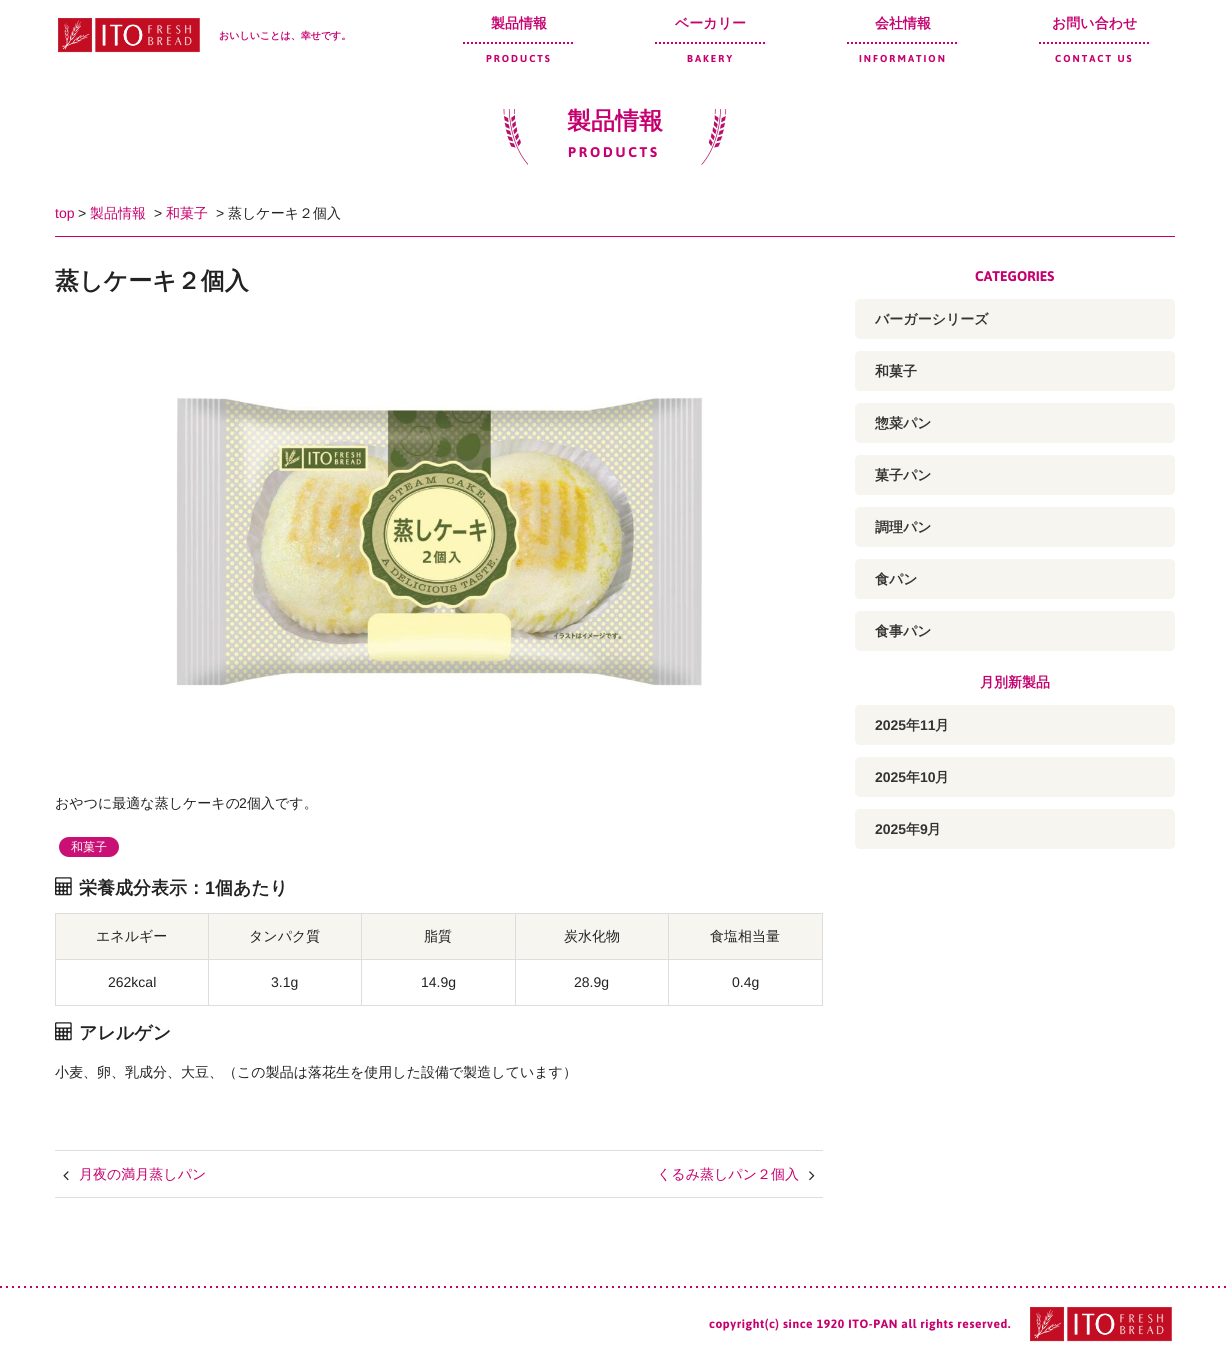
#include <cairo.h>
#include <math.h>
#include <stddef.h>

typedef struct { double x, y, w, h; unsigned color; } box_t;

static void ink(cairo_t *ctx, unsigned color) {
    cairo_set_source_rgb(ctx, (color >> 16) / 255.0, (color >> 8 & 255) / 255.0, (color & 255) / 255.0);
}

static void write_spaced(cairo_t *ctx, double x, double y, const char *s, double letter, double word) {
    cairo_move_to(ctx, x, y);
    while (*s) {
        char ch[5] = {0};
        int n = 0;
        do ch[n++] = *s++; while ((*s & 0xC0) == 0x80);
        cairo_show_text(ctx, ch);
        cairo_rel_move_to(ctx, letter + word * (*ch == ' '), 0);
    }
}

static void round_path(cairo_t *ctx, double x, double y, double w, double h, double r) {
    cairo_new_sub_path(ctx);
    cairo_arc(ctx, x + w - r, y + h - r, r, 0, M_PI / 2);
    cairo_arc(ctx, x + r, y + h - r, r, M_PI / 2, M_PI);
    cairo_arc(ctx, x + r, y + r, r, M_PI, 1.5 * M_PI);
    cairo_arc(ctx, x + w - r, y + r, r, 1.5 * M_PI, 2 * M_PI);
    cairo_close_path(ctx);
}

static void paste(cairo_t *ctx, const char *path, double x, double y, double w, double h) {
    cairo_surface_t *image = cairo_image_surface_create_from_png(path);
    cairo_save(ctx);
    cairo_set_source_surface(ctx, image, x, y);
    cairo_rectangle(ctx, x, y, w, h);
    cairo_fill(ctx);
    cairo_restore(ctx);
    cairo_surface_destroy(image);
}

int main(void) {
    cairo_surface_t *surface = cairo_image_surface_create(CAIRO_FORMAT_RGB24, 1229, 1353);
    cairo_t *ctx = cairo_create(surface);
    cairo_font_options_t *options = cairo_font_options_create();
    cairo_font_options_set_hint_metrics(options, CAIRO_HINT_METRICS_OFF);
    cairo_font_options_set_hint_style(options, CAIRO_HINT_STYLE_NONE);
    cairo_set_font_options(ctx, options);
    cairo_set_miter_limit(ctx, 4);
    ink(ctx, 0xFFFFFF);
    cairo_paint(ctx);
    paste(ctx, "media/1.png", 58, 18, 142, 35);
    cairo_select_font_face(ctx, "WenQuanYi Zen Hei", CAIRO_FONT_SLANT_NORMAL, CAIRO_FONT_WEIGHT_BOLD);
    cairo_set_font_size(ctx, 10);
    ink(ctx, 0xC6006E);
    cairo_move_to(ctx, 219, 39);
    cairo_show_text(ctx, "おいしいことは、幸せです。");
    cairo_set_font_size(ctx, 14);
    cairo_move_to(ctx, 491, 28);
    cairo_show_text(ctx, "製品情報");
    paste(ctx, "media/2.png", 463, 42, 110, 2);
    cairo_select_font_face(ctx, "Asap", CAIRO_FONT_SLANT_NORMAL, CAIRO_FONT_WEIGHT_BOLD);
    cairo_set_font_size(ctx, 10);
    write_spaced(ctx, 486, 62, "PRODUCTS", 2, 0);
    cairo_select_font_face(ctx, "WenQuanYi Zen Hei", CAIRO_FONT_SLANT_NORMAL, CAIRO_FONT_WEIGHT_BOLD);
    cairo_set_font_size(ctx, 14);
    cairo_move_to(ctx, 675, 28);
    cairo_show_text(ctx, "ベーカリー");
    paste(ctx, "media/2.png", 655, 42, 110, 2);
    cairo_select_font_face(ctx, "Asap", CAIRO_FONT_SLANT_NORMAL, CAIRO_FONT_WEIGHT_BOLD);
    cairo_set_font_size(ctx, 10);
    write_spaced(ctx, 687, 62, "BAKERY", 2, 0);
    cairo_select_font_face(ctx, "WenQuanYi Zen Hei", CAIRO_FONT_SLANT_NORMAL, CAIRO_FONT_WEIGHT_BOLD);
    cairo_set_font_size(ctx, 14);
    cairo_move_to(ctx, 875, 28);
    cairo_show_text(ctx, "会社情報");
    paste(ctx, "media/2.png", 847, 42, 110, 2);
    cairo_select_font_face(ctx, "Asap", CAIRO_FONT_SLANT_NORMAL, CAIRO_FONT_WEIGHT_BOLD);
    cairo_set_font_size(ctx, 10);
    write_spaced(ctx, 859, 62, "INFORMATION", 2, 0);
    cairo_select_font_face(ctx, "WenQuanYi Zen Hei", CAIRO_FONT_SLANT_NORMAL, CAIRO_FONT_WEIGHT_BOLD);
    cairo_set_font_size(ctx, 14);
    cairo_move_to(ctx, 1052, 28);
    cairo_show_text(ctx, "お問い合わせ");
    paste(ctx, "media/2.png", 1039, 42, 110, 2);
    cairo_select_font_face(ctx, "Asap", CAIRO_FONT_SLANT_NORMAL, CAIRO_FONT_WEIGHT_BOLD);
    cairo_set_font_size(ctx, 10);
    write_spaced(ctx, 1055, 62, "CONTACT US", 2, 0);
    paste(ctx, "media/3.png", 503, 109, 25, 56);
    cairo_select_font_face(ctx, "WenQuanYi Zen Hei", CAIRO_FONT_SLANT_NORMAL, CAIRO_FONT_WEIGHT_BOLD);
    cairo_set_font_size(ctx, 24);
    cairo_move_to(ctx, 567, 129);
    cairo_show_text(ctx, "製品情報");
    paste(ctx, "media/4.png", 701, 109, 26, 56);
    cairo_select_font_face(ctx, "Asap", CAIRO_FONT_SLANT_NORMAL, CAIRO_FONT_WEIGHT_BOLD);
    cairo_set_font_size(ctx, 14);
    write_spaced(ctx, 568, 157, "PRODUCTS", 2.75, 0);
    cairo_rectangle(ctx, 55, 236, 1120, 1);
    cairo_fill(ctx);
    cairo_select_font_face(ctx, "Liberation Sans", CAIRO_FONT_SLANT_NORMAL, CAIRO_FONT_WEIGHT_NORMAL);
    cairo_move_to(ctx, 55, 218);
    cairo_show_text(ctx, "top");
    ink(ctx, 0x222222);
    cairo_move_to(ctx, 78, 218);
    cairo_show_text(ctx, ">");
    cairo_select_font_face(ctx, "WenQuanYi Zen Hei Medium", CAIRO_FONT_SLANT_NORMAL, CAIRO_FONT_WEIGHT_NORMAL);
    ink(ctx, 0xC6006E);
    cairo_move_to(ctx, 90, 218);
    cairo_show_text(ctx, "製品情報");
    cairo_select_font_face(ctx, "Liberation Sans", CAIRO_FONT_SLANT_NORMAL, CAIRO_FONT_WEIGHT_NORMAL);
    ink(ctx, 0x222222);
    cairo_move_to(ctx, 154, 218);
    cairo_show_text(ctx, ">");
    cairo_select_font_face(ctx, "WenQuanYi Zen Hei Medium", CAIRO_FONT_SLANT_NORMAL, CAIRO_FONT_WEIGHT_NORMAL);
    ink(ctx, 0xC6006E);
    cairo_move_to(ctx, 166, 218);
    cairo_show_text(ctx, "和菓子");
    cairo_select_font_face(ctx, "Liberation Sans", CAIRO_FONT_SLANT_NORMAL, CAIRO_FONT_WEIGHT_NORMAL);
    ink(ctx, 0x222222);
    cairo_move_to(ctx, 216, 218);
    cairo_show_text(ctx, ">");
    cairo_select_font_face(ctx, "WenQuanYi Zen Hei Medium", CAIRO_FONT_SLANT_NORMAL, CAIRO_FONT_WEIGHT_NORMAL);
    cairo_move_to(ctx, 228, 218);
    cairo_show_text(ctx, "蒸しケーキ２個入");
    cairo_select_font_face(ctx, "WenQuanYi Zen Hei", CAIRO_FONT_SLANT_NORMAL, CAIRO_FONT_WEIGHT_BOLD);
    cairo_set_font_size(ctx, 24);
    cairo_move_to(ctx, 55, 289);
    cairo_show_text(ctx, "蒸しケーキ２個入");
    paste(ctx, "media/5.png", 176, 393, 527, 297);
    cairo_select_font_face(ctx, "WenQuanYi Zen Hei Medium", CAIRO_FONT_SLANT_NORMAL, CAIRO_FONT_WEIGHT_NORMAL);
    cairo_set_font_size(ctx, 14);
    cairo_move_to(ctx, 55, 808);
    cairo_show_text(ctx, "おやつに最適な蒸しケーキの");
    cairo_select_font_face(ctx, "Liberation Sans", CAIRO_FONT_SLANT_NORMAL, CAIRO_FONT_WEIGHT_NORMAL);
    cairo_move_to(ctx, 239, 808);
    cairo_show_text(ctx, "2");
    cairo_select_font_face(ctx, "WenQuanYi Zen Hei Medium", CAIRO_FONT_SLANT_NORMAL, CAIRO_FONT_WEIGHT_NORMAL);
    cairo_move_to(ctx, 247, 808);
    cairo_show_text(ctx, "個入です。");
    ink(ctx, 0xC91075);
    round_path(ctx, 59, 837, 60, 20, 10);
    cairo_fill(ctx);
    cairo_set_font_size(ctx, 12);
    ink(ctx, 0xFFFFFF);
    cairo_move_to(ctx, 71, 851);
    cairo_show_text(ctx, "和菓子");
    paste(ctx, "media/6.png", 55, 877, 17, 19);
    cairo_select_font_face(ctx, "WenQuanYi Zen Hei", CAIRO_FONT_SLANT_NORMAL, CAIRO_FONT_WEIGHT_BOLD);
    cairo_set_font_size(ctx, 18);
    ink(ctx, 0x222222);
    cairo_move_to(ctx, 79, 894);
    cairo_show_text(ctx, "栄養成分表示：");
    cairo_select_font_face(ctx, "Liberation Sans", CAIRO_FONT_SLANT_NORMAL, CAIRO_FONT_WEIGHT_BOLD);
    cairo_move_to(ctx, 205, 894);
    cairo_show_text(ctx, "1");
    cairo_select_font_face(ctx, "WenQuanYi Zen Hei", CAIRO_FONT_SLANT_NORMAL, CAIRO_FONT_WEIGHT_BOLD);
    cairo_move_to(ctx, 215, 894);
    cairo_show_text(ctx, "個あたり");
    {
        static const box_t items[] = {
            {55, 913, 768, 1, 0xDDDDDD},
            {55, 913, 1, 93, 0xDDDDDD},
            {55, 959, 768, 1, 0xDDDDDD},
            {56, 914, 152, 45, 0xF7F5EF},
        };
        for (size_t i = 0; i < sizeof items / sizeof *items; i++) {
            ink(ctx, items[i].color);
            cairo_rectangle(ctx, items[i].x, items[i].y, items[i].w, items[i].h);
            cairo_fill(ctx);
        }
    }
    cairo_select_font_face(ctx, "WenQuanYi Zen Hei Medium", CAIRO_FONT_SLANT_NORMAL, CAIRO_FONT_WEIGHT_NORMAL);
    cairo_set_font_size(ctx, 14);
    ink(ctx, 0x222222);
    cairo_move_to(ctx, 96, 941);
    cairo_show_text(ctx, "エネルギー");
    ink(ctx, 0xF7F5EF);
    cairo_rectangle(ctx, 209, 914, 152, 45);
    cairo_fill(ctx);
    ink(ctx, 0x222222);
    cairo_move_to(ctx, 249, 941);
    cairo_show_text(ctx, "タンパク質");
    ink(ctx, 0xF7F5EF);
    cairo_rectangle(ctx, 362, 914, 153, 45);
    cairo_fill(ctx);
    ink(ctx, 0x222222);
    cairo_move_to(ctx, 424, 941);
    cairo_show_text(ctx, "脂質");
    ink(ctx, 0xF7F5EF);
    cairo_rectangle(ctx, 516, 914, 152, 45);
    cairo_fill(ctx);
    ink(ctx, 0x222222);
    cairo_move_to(ctx, 564, 941);
    cairo_show_text(ctx, "炭水化物");
    ink(ctx, 0xF7F5EF);
    cairo_rectangle(ctx, 669, 914, 153, 45);
    cairo_fill(ctx);
    ink(ctx, 0x222222);
    cairo_move_to(ctx, 710, 941);
    cairo_show_text(ctx, "食塩相当量");
    ink(ctx, 0xDDDDDD);
    cairo_rectangle(ctx, 55, 1005, 768, 1);
    cairo_fill(ctx);
    cairo_rectangle(ctx, 208, 913, 1, 93);
    cairo_fill(ctx);
    cairo_select_font_face(ctx, "Liberation Sans", CAIRO_FONT_SLANT_NORMAL, CAIRO_FONT_WEIGHT_NORMAL);
    ink(ctx, 0x222222);
    cairo_move_to(ctx, 108, 987);
    cairo_show_text(ctx, "262kcal");
    ink(ctx, 0xDDDDDD);
    cairo_rectangle(ctx, 361, 913, 1, 93);
    cairo_fill(ctx);
    ink(ctx, 0x222222);
    cairo_move_to(ctx, 271, 987);
    cairo_show_text(ctx, "3.1g");
    ink(ctx, 0xDDDDDD);
    cairo_rectangle(ctx, 515, 913, 1, 93);
    cairo_fill(ctx);
    ink(ctx, 0x222222);
    cairo_move_to(ctx, 421, 987);
    cairo_show_text(ctx, "14.9g");
    ink(ctx, 0xDDDDDD);
    cairo_rectangle(ctx, 668, 913, 1, 93);
    cairo_fill(ctx);
    ink(ctx, 0x222222);
    cairo_move_to(ctx, 574, 987);
    cairo_show_text(ctx, "28.9g");
    ink(ctx, 0xDDDDDD);
    cairo_rectangle(ctx, 822, 913, 1, 93);
    cairo_fill(ctx);
    ink(ctx, 0x222222);
    cairo_move_to(ctx, 732, 987);
    cairo_show_text(ctx, "0.4g");
    paste(ctx, "media/6.png", 55, 1022, 17, 19);
    cairo_select_font_face(ctx, "WenQuanYi Zen Hei", CAIRO_FONT_SLANT_NORMAL, CAIRO_FONT_WEIGHT_BOLD);
    cairo_set_font_size(ctx, 18);
    cairo_move_to(ctx, 79, 1039);
    cairo_show_text(ctx, "アレルゲン");
    cairo_select_font_face(ctx, "WenQuanYi Zen Hei Medium", CAIRO_FONT_SLANT_NORMAL, CAIRO_FONT_WEIGHT_NORMAL);
    cairo_set_font_size(ctx, 14);
    cairo_move_to(ctx, 55, 1077);
    cairo_show_text(ctx, "小麦、卵、乳成分、大豆、（この製品は落花生を使用した設備で製造しています）");
    ink(ctx, 0xDDDDDD);
    cairo_rectangle(ctx, 55, 1150, 768, 1);
    cairo_fill(ctx);
    cairo_rectangle(ctx, 55, 1197, 768, 1);
    cairo_fill(ctx);
    paste(ctx, "media/7.png", 63, 1171, 6, 10);
    ink(ctx, 0xC6006E);
    cairo_move_to(ctx, 79, 1179);
    cairo_show_text(ctx, "月夜の満月蒸しパン");
    cairo_move_to(ctx, 657, 1179);
    cairo_show_text(ctx, "くるみ蒸しパン２個入");
    paste(ctx, "media/8.png", 809, 1171, 6, 10);
    cairo_select_font_face(ctx, "Asap", CAIRO_FONT_SLANT_NORMAL, CAIRO_FONT_WEIGHT_BOLD);
    cairo_move_to(ctx, 975, 281);
    cairo_show_text(ctx, "CATEGORIES");
    ink(ctx, 0xF7F5EF);
    round_path(ctx, 855, 299, 320, 40, 5);
    cairo_fill(ctx);
    cairo_select_font_face(ctx, "WenQuanYi Zen Hei", CAIRO_FONT_SLANT_NORMAL, CAIRO_FONT_WEIGHT_BOLD);
    ink(ctx, 0x333333);
    cairo_move_to(ctx, 875, 324);
    cairo_show_text(ctx, "バーガーシリーズ");
    ink(ctx, 0xF7F5EF);
    round_path(ctx, 855, 351, 320, 40, 5);
    cairo_fill(ctx);
    ink(ctx, 0x333333);
    cairo_move_to(ctx, 875, 376);
    cairo_show_text(ctx, "和菓子");
    ink(ctx, 0xF7F5EF);
    round_path(ctx, 855, 403, 320, 40, 5);
    cairo_fill(ctx);
    ink(ctx, 0x333333);
    cairo_move_to(ctx, 875, 428);
    cairo_show_text(ctx, "惣菜パン");
    ink(ctx, 0xF7F5EF);
    round_path(ctx, 855, 455, 320, 40, 5);
    cairo_fill(ctx);
    ink(ctx, 0x333333);
    cairo_move_to(ctx, 875, 480);
    cairo_show_text(ctx, "菓子パン");
    ink(ctx, 0xF7F5EF);
    round_path(ctx, 855, 507, 320, 40, 5);
    cairo_fill(ctx);
    ink(ctx, 0x333333);
    cairo_move_to(ctx, 875, 532);
    cairo_show_text(ctx, "調理パン");
    ink(ctx, 0xF7F5EF);
    round_path(ctx, 855, 559, 320, 40, 5);
    cairo_fill(ctx);
    ink(ctx, 0x333333);
    cairo_move_to(ctx, 875, 584);
    cairo_show_text(ctx, "食パン");
    ink(ctx, 0xF7F5EF);
    round_path(ctx, 855, 611, 320, 40, 5);
    cairo_fill(ctx);
    ink(ctx, 0x333333);
    cairo_move_to(ctx, 875, 636);
    cairo_show_text(ctx, "食事パン");
    ink(ctx, 0xC6006E);
    cairo_move_to(ctx, 980, 687);
    cairo_show_text(ctx, "月別新製品");
    ink(ctx, 0xF7F5EF);
    round_path(ctx, 855, 705, 320, 40, 5);
    cairo_fill(ctx);
    cairo_select_font_face(ctx, "Liberation Sans", CAIRO_FONT_SLANT_NORMAL, CAIRO_FONT_WEIGHT_BOLD);
    ink(ctx, 0x333333);
    cairo_move_to(ctx, 875, 730);
    cairo_show_text(ctx, "2025");
    cairo_select_font_face(ctx, "WenQuanYi Zen Hei", CAIRO_FONT_SLANT_NORMAL, CAIRO_FONT_WEIGHT_BOLD);
    cairo_move_to(ctx, 906, 730);
    cairo_show_text(ctx, "年");
    cairo_select_font_face(ctx, "Liberation Sans", CAIRO_FONT_SLANT_NORMAL, CAIRO_FONT_WEIGHT_BOLD);
    cairo_move_to(ctx, 920, 730);
    cairo_show_text(ctx, "11");
    cairo_select_font_face(ctx, "WenQuanYi Zen Hei", CAIRO_FONT_SLANT_NORMAL, CAIRO_FONT_WEIGHT_BOLD);
    cairo_move_to(ctx, 935, 730);
    cairo_show_text(ctx, "月");
    ink(ctx, 0xF7F5EF);
    round_path(ctx, 855, 757, 320, 40, 5);
    cairo_fill(ctx);
    cairo_select_font_face(ctx, "Liberation Sans", CAIRO_FONT_SLANT_NORMAL, CAIRO_FONT_WEIGHT_BOLD);
    ink(ctx, 0x333333);
    cairo_move_to(ctx, 875, 782);
    cairo_show_text(ctx, "2025");
    cairo_select_font_face(ctx, "WenQuanYi Zen Hei", CAIRO_FONT_SLANT_NORMAL, CAIRO_FONT_WEIGHT_BOLD);
    cairo_move_to(ctx, 906, 782);
    cairo_show_text(ctx, "年");
    cairo_select_font_face(ctx, "Liberation Sans", CAIRO_FONT_SLANT_NORMAL, CAIRO_FONT_WEIGHT_BOLD);
    cairo_move_to(ctx, 920, 782);
    cairo_show_text(ctx, "10");
    cairo_select_font_face(ctx, "WenQuanYi Zen Hei", CAIRO_FONT_SLANT_NORMAL, CAIRO_FONT_WEIGHT_BOLD);
    cairo_move_to(ctx, 935, 782);
    cairo_show_text(ctx, "月");
    ink(ctx, 0xF7F5EF);
    round_path(ctx, 855, 809, 320, 40, 5);
    cairo_fill(ctx);
    cairo_select_font_face(ctx, "Liberation Sans", CAIRO_FONT_SLANT_NORMAL, CAIRO_FONT_WEIGHT_BOLD);
    ink(ctx, 0x333333);
    cairo_move_to(ctx, 875, 834);
    cairo_show_text(ctx, "2025");
    cairo_select_font_face(ctx, "WenQuanYi Zen Hei", CAIRO_FONT_SLANT_NORMAL, CAIRO_FONT_WEIGHT_BOLD);
    cairo_move_to(ctx, 906, 834);
    cairo_show_text(ctx, "年");
    cairo_select_font_face(ctx, "Liberation Sans", CAIRO_FONT_SLANT_NORMAL, CAIRO_FONT_WEIGHT_BOLD);
    cairo_move_to(ctx, 920, 834);
    cairo_show_text(ctx, "9");
    cairo_select_font_face(ctx, "WenQuanYi Zen Hei", CAIRO_FONT_SLANT_NORMAL, CAIRO_FONT_WEIGHT_BOLD);
    cairo_move_to(ctx, 927, 834);
    cairo_show_text(ctx, "月");
    paste(ctx, "media/9.png", 0, 1286, 1226, 2);
    cairo_select_font_face(ctx, "Asap", CAIRO_FONT_SLANT_NORMAL, CAIRO_FONT_WEIGHT_BOLD);
    cairo_set_font_size(ctx, 12);
    ink(ctx, 0xC6006E);
    write_spaced(ctx, 709, 1328, "copyright(c) since 1920 ITO-PAN all rights reserved.", 0.6, 0);
    paste(ctx, "media/10.png", 1030, 1307, 142, 35);
    cairo_surface_write_to_png(surface, "image.png");
    cairo_font_options_destroy(options);
    cairo_destroy(ctx);
    cairo_surface_destroy(surface);
    return 0;
}
